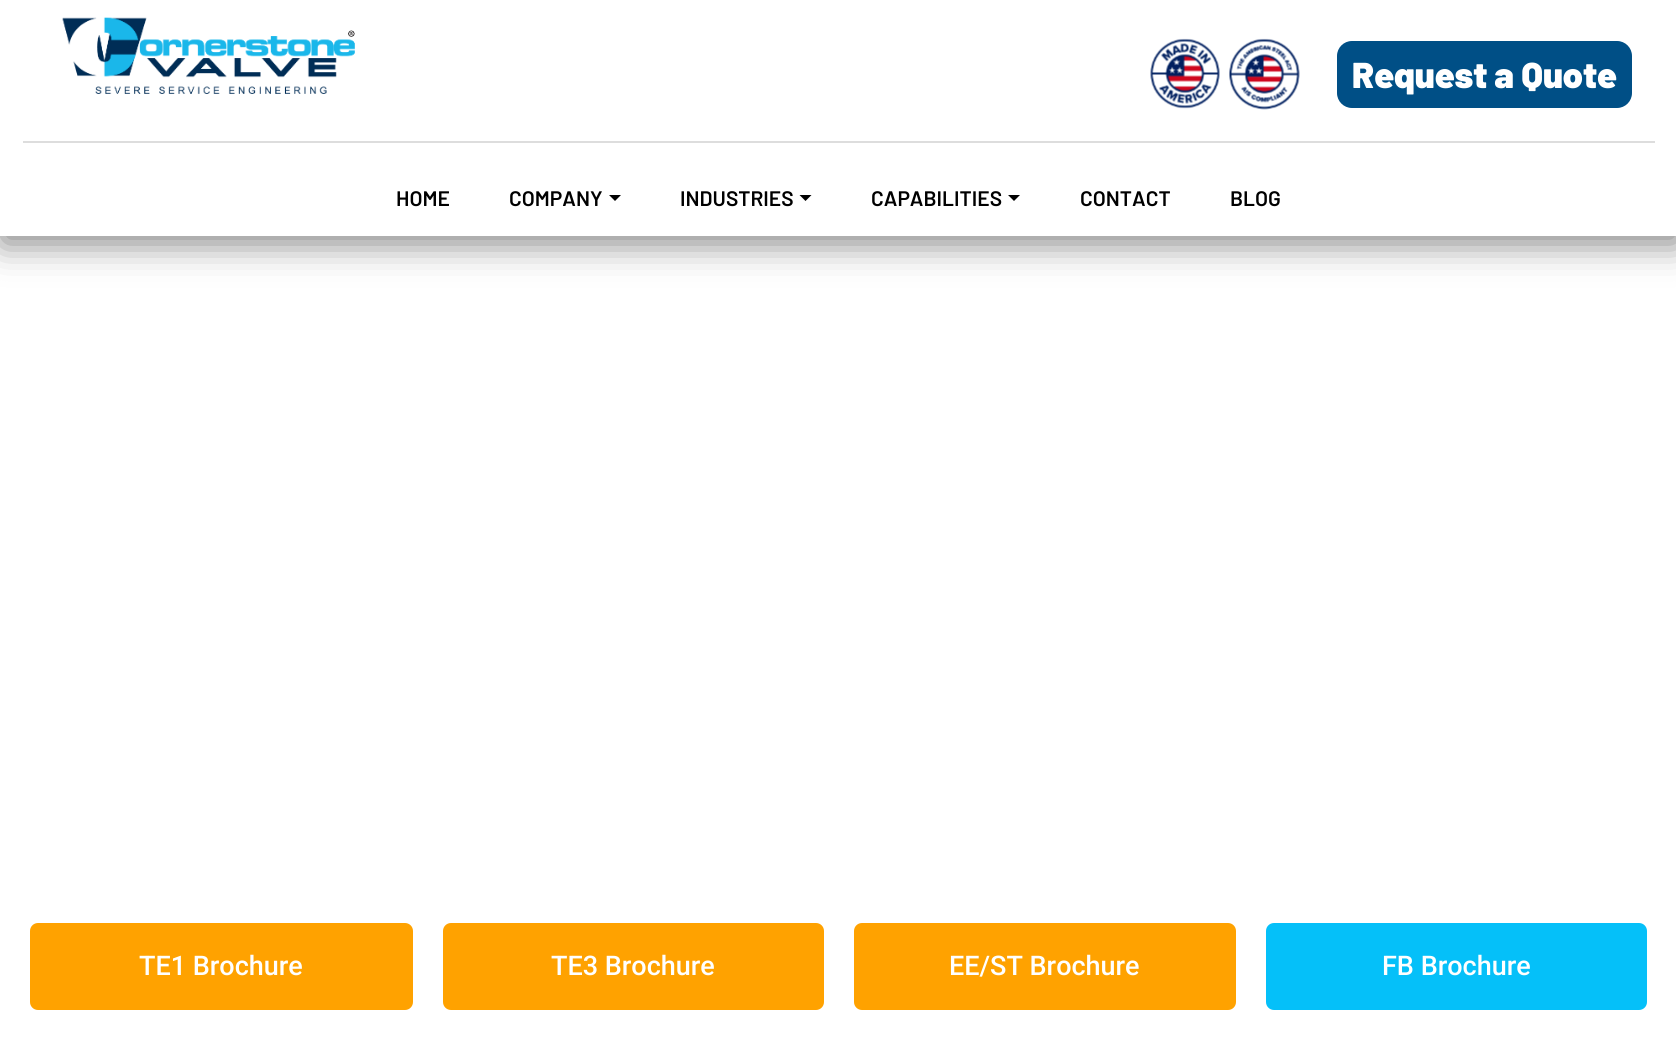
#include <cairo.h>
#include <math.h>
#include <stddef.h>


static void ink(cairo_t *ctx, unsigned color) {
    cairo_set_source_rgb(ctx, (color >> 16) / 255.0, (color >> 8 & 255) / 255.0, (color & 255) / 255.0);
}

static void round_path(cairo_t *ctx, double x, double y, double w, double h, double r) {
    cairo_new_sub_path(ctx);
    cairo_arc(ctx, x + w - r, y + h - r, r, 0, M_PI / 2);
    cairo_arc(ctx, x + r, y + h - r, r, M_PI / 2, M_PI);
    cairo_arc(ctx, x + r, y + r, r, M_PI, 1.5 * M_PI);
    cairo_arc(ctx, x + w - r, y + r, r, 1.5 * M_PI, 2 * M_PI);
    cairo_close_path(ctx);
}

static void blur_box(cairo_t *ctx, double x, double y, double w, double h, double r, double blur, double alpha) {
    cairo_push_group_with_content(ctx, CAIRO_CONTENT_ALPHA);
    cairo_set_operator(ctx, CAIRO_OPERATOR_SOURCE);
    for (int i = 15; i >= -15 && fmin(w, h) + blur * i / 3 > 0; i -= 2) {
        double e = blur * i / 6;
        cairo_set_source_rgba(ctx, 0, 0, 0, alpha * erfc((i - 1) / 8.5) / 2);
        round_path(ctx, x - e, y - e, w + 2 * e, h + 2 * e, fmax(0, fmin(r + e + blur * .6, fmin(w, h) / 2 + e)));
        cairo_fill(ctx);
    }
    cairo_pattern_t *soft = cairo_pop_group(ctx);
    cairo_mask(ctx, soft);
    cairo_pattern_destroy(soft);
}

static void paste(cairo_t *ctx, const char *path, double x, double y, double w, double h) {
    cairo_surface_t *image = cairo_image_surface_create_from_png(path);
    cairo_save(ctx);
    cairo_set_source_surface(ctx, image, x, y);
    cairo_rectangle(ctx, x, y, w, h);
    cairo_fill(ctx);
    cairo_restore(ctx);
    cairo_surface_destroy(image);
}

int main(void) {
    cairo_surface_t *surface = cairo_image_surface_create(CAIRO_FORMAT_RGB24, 1676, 1059);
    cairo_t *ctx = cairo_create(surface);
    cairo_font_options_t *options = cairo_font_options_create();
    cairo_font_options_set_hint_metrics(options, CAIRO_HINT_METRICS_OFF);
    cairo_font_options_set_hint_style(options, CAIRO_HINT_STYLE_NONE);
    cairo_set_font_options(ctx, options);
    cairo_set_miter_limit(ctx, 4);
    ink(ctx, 0xFFFFFF);
    cairo_paint(ctx);
    ink(ctx, 0x000000);
    blur_box(ctx, 2, 8, 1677, 235, 0, 18, 0.5);
    ink(ctx, 0xFFFFFF);
    cairo_rectangle(ctx, 0, 0, 1676, 236);
    cairo_fill(ctx);
    ink(ctx, 0xDDDDDD);
    cairo_rectangle(ctx, 23, 141, 1632, 2);
    cairo_fill(ctx);
    paste(ctx, "media/1.png", 62, 17, 293, 77);
    paste(ctx, "media/2.png", 1150, 38, 70, 71);
    paste(ctx, "media/3.png", 1229, 38, 71, 72);
    ink(ctx, 0x004F86);
    round_path(ctx, 1337, 41, 295, 67, 15);
    cairo_fill(ctx);
    cairo_select_font_face(ctx, "Barlow Black", CAIRO_FONT_SLANT_NORMAL, CAIRO_FONT_WEIGHT_NORMAL);
    cairo_set_font_size(ctx, 36);
    ink(ctx, 0xFFFFFF);
    cairo_move_to(ctx, 1352, 88);
    cairo_show_text(ctx, "Request a Quote");
    cairo_select_font_face(ctx, "Barlow SemiBold", CAIRO_FONT_SLANT_NORMAL, CAIRO_FONT_WEIGHT_NORMAL);
    cairo_set_font_size(ctx, 21);
    ink(ctx, 0x000000);
    cairo_move_to(ctx, 396, 206);
    cairo_show_text(ctx, "HOME");
    cairo_move_to(ctx, 509, 206);
    cairo_show_text(ctx, "COMPANY");
    cairo_new_path(ctx);
    cairo_move_to(ctx, 609, 195);
    cairo_line_to(ctx, 621, 195);
    cairo_line_to(ctx, 615, 201);
    cairo_close_path(ctx);
    cairo_fill(ctx);
    cairo_move_to(ctx, 680, 206);
    cairo_show_text(ctx, "INDUSTRIES");
    cairo_new_path(ctx);
    cairo_move_to(ctx, 799.5, 195);
    cairo_line_to(ctx, 811.5, 195);
    cairo_line_to(ctx, 805.5, 201);
    cairo_close_path(ctx);
    cairo_fill(ctx);
    cairo_move_to(ctx, 871, 206);
    cairo_show_text(ctx, "CAPABILITIES");
    cairo_new_path(ctx);
    cairo_move_to(ctx, 1008, 195);
    cairo_line_to(ctx, 1020, 195);
    cairo_line_to(ctx, 1014, 201);
    cairo_close_path(ctx);
    cairo_fill(ctx);
    cairo_move_to(ctx, 1080, 206);
    cairo_show_text(ctx, "CONTACT");
    cairo_move_to(ctx, 1230, 206);
    cairo_show_text(ctx, "BLOG");
    ink(ctx, 0xFFA200);
    round_path(ctx, 30, 923, 383, 87, 8);
    cairo_fill(ctx);
    cairo_select_font_face(ctx, "Roboto Medium", CAIRO_FONT_SLANT_NORMAL, CAIRO_FONT_WEIGHT_NORMAL);
    cairo_set_font_size(ctx, 27);
    ink(ctx, 0xFFFFFF);
    cairo_move_to(ctx, 139, 975);
    cairo_show_text(ctx, "TE1 Brochure");
    ink(ctx, 0xFFA200);
    round_path(ctx, 443, 923, 381, 87, 8);
    cairo_fill(ctx);
    ink(ctx, 0xFFFFFF);
    cairo_move_to(ctx, 551, 975);
    cairo_show_text(ctx, "TE3 Brochure");
    ink(ctx, 0xFFA200);
    round_path(ctx, 854, 923, 382, 87, 8);
    cairo_fill(ctx);
    ink(ctx, 0xFFFFFF);
    cairo_move_to(ctx, 949, 975);
    cairo_show_text(ctx, "EE/ST Brochure");
    ink(ctx, 0x05C0F9);
    round_path(ctx, 1266, 923, 381, 87, 8);
    cairo_fill(ctx);
    ink(ctx, 0xFFFFFF);
    cairo_move_to(ctx, 1382, 975);
    cairo_show_text(ctx, "FB Brochure");
    cairo_surface_write_to_png(surface, "image.png");
    cairo_font_options_destroy(options);
    cairo_destroy(ctx);
    cairo_surface_destroy(surface);
    return 0;
}
